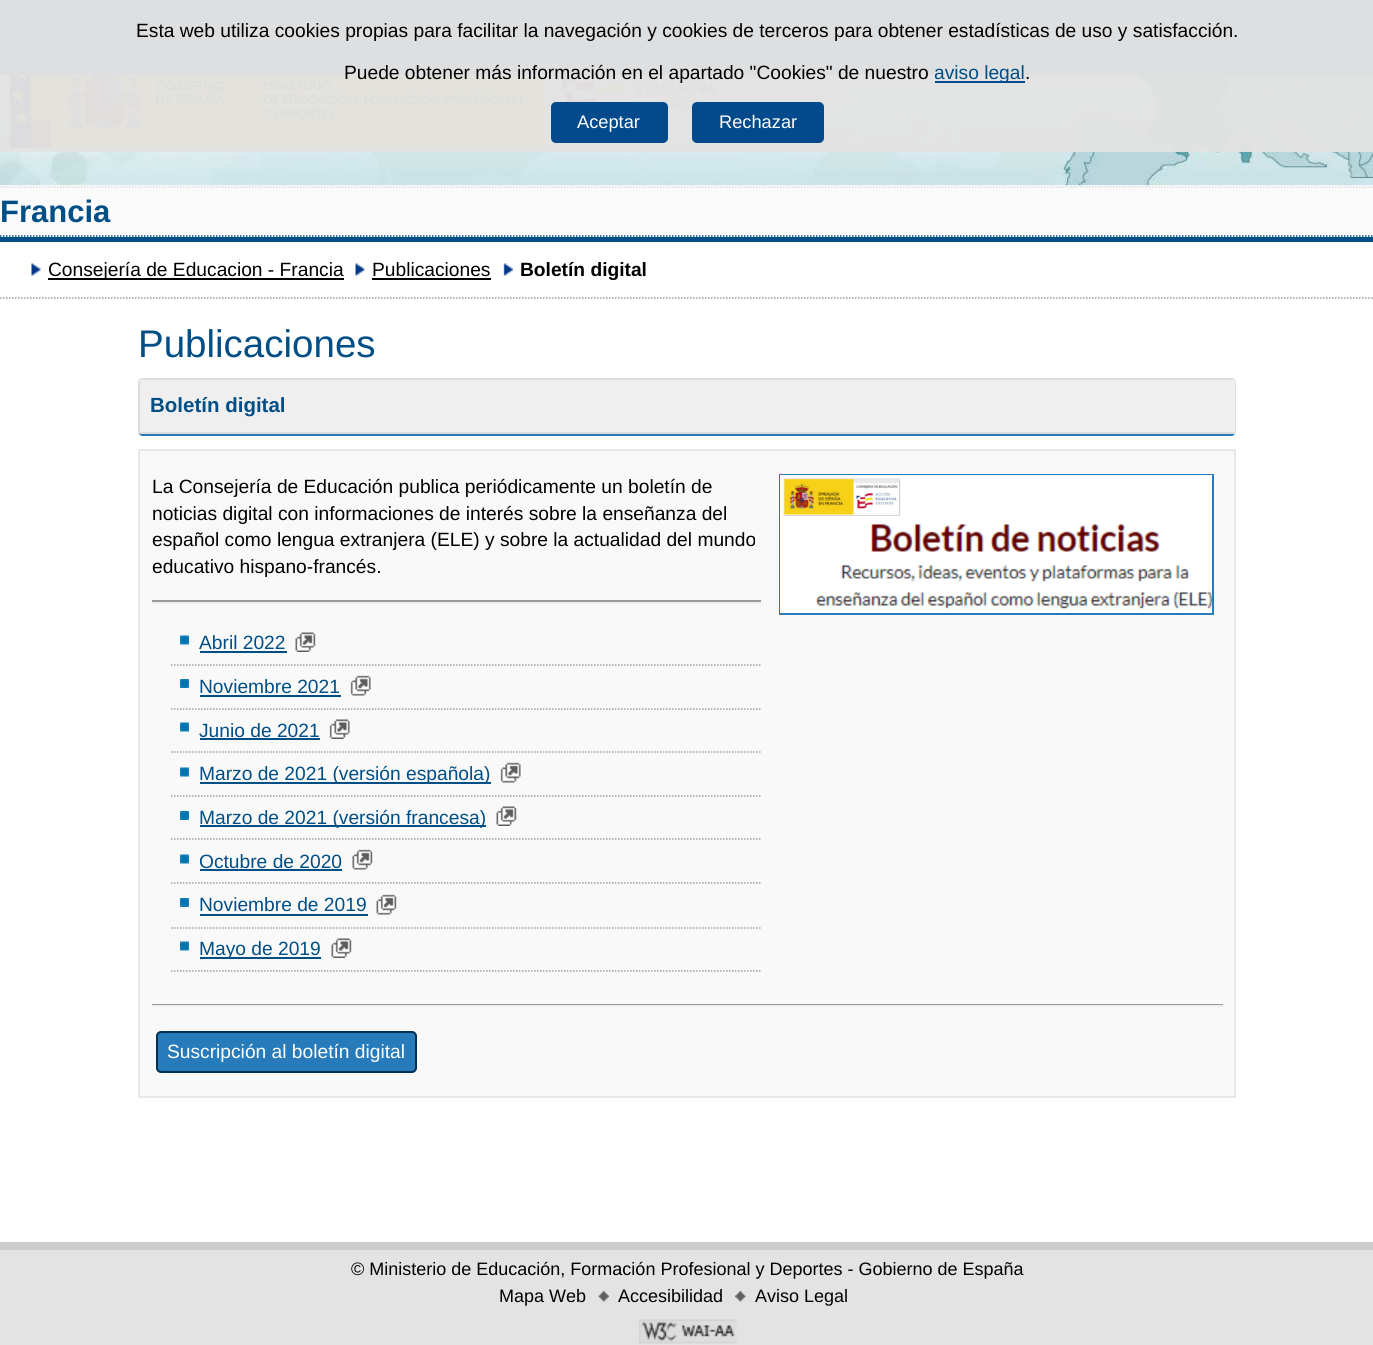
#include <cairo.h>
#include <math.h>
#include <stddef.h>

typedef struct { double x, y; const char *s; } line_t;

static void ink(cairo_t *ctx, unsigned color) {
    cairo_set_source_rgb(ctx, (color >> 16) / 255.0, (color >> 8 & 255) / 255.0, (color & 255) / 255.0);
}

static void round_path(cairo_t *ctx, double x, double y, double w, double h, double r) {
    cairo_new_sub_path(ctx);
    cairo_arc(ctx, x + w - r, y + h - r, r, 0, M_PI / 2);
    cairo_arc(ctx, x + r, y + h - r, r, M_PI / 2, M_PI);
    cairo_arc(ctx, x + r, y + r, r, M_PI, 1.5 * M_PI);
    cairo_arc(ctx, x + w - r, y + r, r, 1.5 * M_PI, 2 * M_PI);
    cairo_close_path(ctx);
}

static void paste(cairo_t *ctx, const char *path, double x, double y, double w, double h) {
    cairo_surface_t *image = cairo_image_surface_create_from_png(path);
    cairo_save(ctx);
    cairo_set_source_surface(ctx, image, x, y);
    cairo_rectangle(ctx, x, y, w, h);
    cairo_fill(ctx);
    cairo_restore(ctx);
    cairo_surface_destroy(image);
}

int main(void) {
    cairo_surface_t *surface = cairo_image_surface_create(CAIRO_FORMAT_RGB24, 1373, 1345);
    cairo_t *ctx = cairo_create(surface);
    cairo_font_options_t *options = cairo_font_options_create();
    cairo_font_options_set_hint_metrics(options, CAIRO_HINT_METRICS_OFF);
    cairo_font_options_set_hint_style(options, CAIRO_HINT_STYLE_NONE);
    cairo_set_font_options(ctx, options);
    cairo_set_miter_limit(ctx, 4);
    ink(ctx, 0xE3E3E3);
    cairo_paint(ctx);
    ink(ctx, 0x277BBA);
    cairo_rectangle(ctx, 75, 0, 1298, 75);
    cairo_fill(ctx);
    ink(ctx, 0x003F6D);
    cairo_rectangle(ctx, 0, 0, 75, 75);
    cairo_fill(ctx);
    round_path(ctx, 96, 15, 46, 46, 4);
    cairo_fill_preserve(ctx);
    ink(ctx, 0x00243E);
    cairo_stroke(ctx);
    round_path(ctx, 1185, 15, 46, 46, 4);
    cairo_stroke(ctx);
    ink(ctx, 0x003F6D);
    cairo_rectangle(ctx, 1185, 15, 45, 45);
    cairo_fill(ctx);
    round_path(ctx, 1248, 15, 46, 46, 4);
    cairo_stroke(ctx);
    round_path(ctx, 1309, 15, 46, 46, 7);
    cairo_stroke(ctx);
    ink(ctx, 0xFFFFFF);
    cairo_rectangle(ctx, 0, 185, 1373, 1);
    cairo_fill(ctx);
    paste(ctx, "media/1.png", 0, 75, 1373, 111);
    paste(ctx, "media/2.png", 9, 75, 725, 73);
    cairo_set_source_rgba(ctx, 0.886, 0.886, 0.886, 0.97);
    cairo_rectangle(ctx, 0, 0, 1373, 152);
    cairo_fill(ctx);
    cairo_select_font_face(ctx, "Liberation Sans", CAIRO_FONT_SLANT_NORMAL, CAIRO_FONT_WEIGHT_NORMAL);
    cairo_set_font_size(ctx, 19.2);
    ink(ctx, 0x000000);
    cairo_move_to(ctx, 136, 37);
    cairo_show_text(ctx, "Esta web utiliza cookies propias para facilitar la navegación y cookies de terceros para obtener estadísticas de uso y satisfacción.");
    cairo_move_to(ctx, 344, 79);
    cairo_show_text(ctx, "Puede obtener más información en el apartado \"Cookies\" de nuestro");
    ink(ctx, 0x024A8B);
    cairo_rectangle(ctx, 935, 81, 90, 2);
    cairo_fill(ctx);
    ink(ctx, 0x004E86);
    cairo_move_to(ctx, 934, 79);
    cairo_show_text(ctx, "aviso legal");
    ink(ctx, 0x000000);
    cairo_move_to(ctx, 1025, 79);
    cairo_show_text(ctx, ".");
    ink(ctx, 0x024A8B);
    round_path(ctx, 551, 102, 117, 41, 5);
    cairo_fill(ctx);
    cairo_set_font_size(ctx, 18.25);
    ink(ctx, 0xFFFFFF);
    cairo_move_to(ctx, 577, 128);
    cairo_show_text(ctx, "Aceptar");
    ink(ctx, 0x024A8B);
    round_path(ctx, 692, 102, 132, 41, 5);
    cairo_fill(ctx);
    ink(ctx, 0xFFFFFF);
    cairo_move_to(ctx, 719, 128);
    cairo_show_text(ctx, "Rechazar");
    ink(ctx, 0x004E86);
    cairo_rectangle(ctx, 0, 237, 1373, 5);
    cairo_fill(ctx);
    ink(ctx, 0xFAFAFA);
    cairo_rectangle(ctx, 0, 186, 1373, 51);
    cairo_fill(ctx);
    cairo_new_path(ctx);
    cairo_move_to(ctx, 0, 187);
    cairo_line_to(ctx, 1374, 187);
    ink(ctx, 0xDDDDDD);
    cairo_set_line_width(ctx, 1.5);
    cairo_set_dash(ctx, (double[]){1.5, 1.5}, 2, 0);
    cairo_stroke(ctx);
    cairo_new_path(ctx);
    cairo_move_to(ctx, 0, 236);
    cairo_line_to(ctx, 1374, 236);
    ink(ctx, 0x004E86);
    cairo_stroke(ctx);
    cairo_select_font_face(ctx, "Liberation Sans", CAIRO_FONT_SLANT_NORMAL, CAIRO_FONT_WEIGHT_BOLD);
    cairo_set_font_size(ctx, 31);
    cairo_move_to(ctx, 0, 222);
    cairo_show_text(ctx, "Francia");
    ink(ctx, 0xFFFFFF);
    cairo_rectangle(ctx, 0, 242, 1373, 1000);
    cairo_fill(ctx);
    cairo_new_path(ctx);
    cairo_move_to(ctx, 0, 298);
    cairo_line_to(ctx, 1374, 298);
    ink(ctx, 0x999999);
    cairo_stroke(ctx);
    paste(ctx, "media/3.png", 31, 263, 10, 13);
    ink(ctx, 0x000000);
    cairo_rectangle(ctx, 48, 278, 296, 2);
    cairo_fill(ctx);
    cairo_select_font_face(ctx, "Liberation Sans", CAIRO_FONT_SLANT_NORMAL, CAIRO_FONT_WEIGHT_NORMAL);
    cairo_set_font_size(ctx, 19.2);
    cairo_move_to(ctx, 48, 276);
    cairo_show_text(ctx, "Consejería de Educacion - Francia");
    paste(ctx, "media/4.png", 355, 263, 10, 13);
    cairo_move_to(ctx, 372, 276);
    cairo_show_text(ctx, "Publicaciones");
    cairo_rectangle(ctx, 372, 278, 119, 2);
    cairo_fill(ctx);
    paste(ctx, "media/5.png", 503, 263, 10, 13);
    cairo_select_font_face(ctx, "Liberation Sans", CAIRO_FONT_SLANT_NORMAL, CAIRO_FONT_WEIGHT_BOLD);
    cairo_move_to(ctx, 520, 276);
    cairo_show_text(ctx, "Boletín digital");
    cairo_select_font_face(ctx, "Liberation Sans", CAIRO_FONT_SLANT_NORMAL, CAIRO_FONT_WEIGHT_NORMAL);
    cairo_set_font_size(ctx, 38.5);
    ink(ctx, 0x004E86);
    cairo_move_to(ctx, 138, 357);
    cairo_show_text(ctx, "Publicaciones");
    ink(ctx, 0xDDDDDD);
    cairo_new_path(ctx);
    cairo_move_to(ctx, 142, 378);
    cairo_line_to(ctx, 139, 379);
    cairo_line_to(ctx, 141, 381);
    cairo_line_to(ctx, 142, 380);
    cairo_line_to(ctx, 1232, 380);
    cairo_line_to(ctx, 1233, 381);
    cairo_line_to(ctx, 1235, 379);
    cairo_line_to(ctx, 1232, 378);
    cairo_close_path(ctx);
    cairo_fill(ctx);
    cairo_new_path(ctx);
    cairo_move_to(ctx, 1236, 432);
    cairo_line_to(ctx, 1236, 382);
    cairo_line_to(ctx, 1235, 379);
    cairo_line_to(ctx, 1233, 381);
    cairo_line_to(ctx, 1234, 382);
    cairo_line_to(ctx, 1234, 432);
    cairo_line_to(ctx, 1235, 434);
    cairo_close_path(ctx);
    cairo_fill(ctx);
    ink(ctx, 0x277BBA);
    cairo_new_path(ctx);
    cairo_move_to(ctx, 1235, 434);
    cairo_curve_to(ctx, 1234, 435, 1233, 436, 1232, 436);
    cairo_line_to(ctx, 142, 436);
    cairo_curve_to(ctx, 141, 436, 140, 435, 139, 434);
    cairo_line_to(ctx, 140, 432);
    cairo_curve_to(ctx, 140, 433, 141, 434, 142, 434);
    cairo_line_to(ctx, 1232, 434);
    cairo_curve_to(ctx, 1233, 434, 1234, 433, 1234, 432);
    cairo_close_path(ctx);
    cairo_fill(ctx);
    ink(ctx, 0xDDDDDD);
    cairo_new_path(ctx);
    cairo_move_to(ctx, 138, 382);
    cairo_line_to(ctx, 138, 432);
    cairo_line_to(ctx, 139, 434);
    cairo_line_to(ctx, 140, 432);
    cairo_line_to(ctx, 140, 382);
    cairo_line_to(ctx, 141, 381);
    cairo_line_to(ctx, 139, 379);
    cairo_close_path(ctx);
    cairo_fill(ctx);
    ink(ctx, 0xEFEFEF);
    cairo_rectangle(ctx, 140, 380, 1095, 52);
    cairo_fill(ctx);
    ink(ctx, 0xDDDDDD);
    cairo_rectangle(ctx, 140, 432, 1095, 2);
    cairo_fill(ctx);
    cairo_select_font_face(ctx, "Liberation Sans", CAIRO_FONT_SLANT_NORMAL, CAIRO_FONT_WEIGHT_BOLD);
    cairo_set_font_size(ctx, 20.5);
    ink(ctx, 0x004E86);
    cairo_move_to(ctx, 150, 412);
    cairo_show_text(ctx, "Boletín digital");
    ink(ctx, 0xF9F9F9);
    cairo_rectangle(ctx, 139, 450, 1096, 647);
    cairo_fill_preserve(ctx);
    ink(ctx, 0xE8E8E8);
    cairo_set_line_width(ctx, 2);
    cairo_set_dash(ctx, NULL, 0, 0);
    cairo_stroke(ctx);
    cairo_select_font_face(ctx, "Liberation Sans", CAIRO_FONT_SLANT_NORMAL, CAIRO_FONT_WEIGHT_NORMAL);
    cairo_set_font_size(ctx, 19.2);
    ink(ctx, 0x000000);
    {
        static const line_t items[] = {
            {152, 493, "La Consejería de Educación publica periódicamente un boletín de"},
            {152, 520, "noticias digital con informaciones de interés sobre la enseñanza del"},
            {152, 546, "español como lengua extranjera (ELE) y sobre la actualidad del mundo"},
            {152, 573, "educativo hispano-francés."},
        };
        for (size_t i = 0; i < sizeof items / sizeof *items; i++) {
            cairo_move_to(ctx, items[i].x, items[i].y);
            cairo_show_text(ctx, items[i].s);
        }
    }
    ink(ctx, 0x9A9A9A);
    cairo_rectangle(ctx, 152, 600, 609, 2);
    cairo_fill(ctx);
    ink(ctx, 0xEEEEEE);
    cairo_rectangle(ctx, 152, 602, 609, 2);
    cairo_fill(ctx);
    cairo_rectangle(ctx, 780, 475, 433, 139);
    ink(ctx, 0x277BBA);
    cairo_stroke(ctx);
    paste(ctx, "media/6.png", 780, 475, 432, 138);
    cairo_new_path(ctx);
    cairo_move_to(ctx, 171, 665);
    cairo_line_to(ctx, 760.5, 665);
    ink(ctx, 0x9F9F9F);
    cairo_set_line_width(ctx, 1.5);
    cairo_set_dash(ctx, (double[]){1.5, 1.5}, 2, 0);
    cairo_stroke(ctx);
    paste(ctx, "media/7.png", 180, 635, 9, 10);
    ink(ctx, 0x004E86);
    cairo_move_to(ctx, 199, 649);
    cairo_show_text(ctx, "Abril 2022");
    cairo_rectangle(ctx, 200, 651, 87, 2);
    cairo_fill(ctx);
    paste(ctx, "media/8.png", 295, 632, 21, 20);
    cairo_new_path(ctx);
    cairo_move_to(ctx, 171, 709);
    cairo_line_to(ctx, 760.5, 709);
    ink(ctx, 0x9F9F9F);
    cairo_stroke(ctx);
    paste(ctx, "media/9.png", 180, 679, 9, 9);
    ink(ctx, 0x004E86);
    cairo_move_to(ctx, 199, 693);
    cairo_show_text(ctx, "Noviembre 2021");
    cairo_rectangle(ctx, 200, 695, 141, 2);
    cairo_fill(ctx);
    paste(ctx, "media/10.png", 350, 675, 21, 21);
    cairo_new_path(ctx);
    cairo_move_to(ctx, 171, 752);
    cairo_line_to(ctx, 760.5, 752);
    ink(ctx, 0x9F9F9F);
    cairo_stroke(ctx);
    paste(ctx, "media/7.png", 180, 722, 9, 10);
    ink(ctx, 0x004E86);
    cairo_move_to(ctx, 199, 737);
    cairo_show_text(ctx, "Junio de 2021");
    cairo_rectangle(ctx, 200, 738, 120, 2);
    cairo_fill(ctx);
    paste(ctx, "media/11.png", 329, 719, 21, 20);
    cairo_new_path(ctx);
    cairo_move_to(ctx, 171, 796);
    cairo_line_to(ctx, 760.5, 796);
    ink(ctx, 0x9F9F9F);
    cairo_stroke(ctx);
    paste(ctx, "media/7.png", 180, 767, 9, 10);
    ink(ctx, 0x004E86);
    cairo_rectangle(ctx, 200, 782, 291, 2);
    cairo_fill(ctx);
    cairo_move_to(ctx, 199, 780);
    cairo_show_text(ctx, "Marzo de 2021 (versión española)");
    paste(ctx, "media/10.png", 500, 762, 21, 21);
    cairo_new_path(ctx);
    cairo_move_to(ctx, 171, 839);
    cairo_line_to(ctx, 760.5, 839);
    ink(ctx, 0x9F9F9F);
    cairo_stroke(ctx);
    paste(ctx, "media/9.png", 180, 811, 9, 9);
    ink(ctx, 0x004E86);
    cairo_rectangle(ctx, 200, 825, 286, 2);
    cairo_fill(ctx);
    cairo_move_to(ctx, 199, 824);
    cairo_show_text(ctx, "Marzo de 2021 (versión francesa)");
    paste(ctx, "media/12.png", 496, 806, 21, 20);
    cairo_new_path(ctx);
    cairo_move_to(ctx, 171, 883);
    cairo_line_to(ctx, 760.5, 883);
    ink(ctx, 0x9F9F9F);
    cairo_stroke(ctx);
    paste(ctx, "media/7.png", 180, 854, 9, 10);
    ink(ctx, 0x004E86);
    cairo_move_to(ctx, 199, 868);
    cairo_show_text(ctx, "Octubre de 2020");
    cairo_rectangle(ctx, 200, 869, 142, 2);
    cairo_fill(ctx);
    paste(ctx, "media/13.png", 352, 849, 21, 21);
    cairo_new_path(ctx);
    cairo_move_to(ctx, 171, 928);
    cairo_line_to(ctx, 760.5, 928);
    ink(ctx, 0x9F9F9F);
    cairo_stroke(ctx);
    paste(ctx, "media/9.png", 180, 898, 9, 9);
    ink(ctx, 0x004E86);
    cairo_move_to(ctx, 199, 911);
    cairo_show_text(ctx, "Noviembre de 2019");
    cairo_rectangle(ctx, 200, 914, 168, 2);
    cairo_fill(ctx);
    paste(ctx, "media/13.png", 376, 894, 21, 21);
    cairo_new_path(ctx);
    cairo_move_to(ctx, 171, 971);
    cairo_line_to(ctx, 760.5, 971);
    ink(ctx, 0x9F9F9F);
    cairo_stroke(ctx);
    paste(ctx, "media/7.png", 180, 941, 9, 10);
    ink(ctx, 0x004E86);
    cairo_rectangle(ctx, 200, 957, 121, 2);
    cairo_fill(ctx);
    cairo_move_to(ctx, 199, 955);
    cairo_show_text(ctx, "Mayo de 2019");
    paste(ctx, "media/8.png", 331, 938, 21, 20);
    ink(ctx, 0x9A9A9A);
    cairo_rectangle(ctx, 152, 1004, 1071, 1);
    cairo_fill(ctx);
    ink(ctx, 0xEEEEEE);
    cairo_rectangle(ctx, 152, 1005, 1071, 2);
    cairo_fill(ctx);
    ink(ctx, 0x277BBA);
    round_path(ctx, 157, 1032, 259, 40, 4);
    cairo_fill_preserve(ctx);
    ink(ctx, 0x003154);
    cairo_set_line_width(ctx, 2);
    cairo_set_dash(ctx, NULL, 0, 0);
    cairo_stroke(ctx);
    ink(ctx, 0xFFFFFF);
    cairo_move_to(ctx, 167, 1058);
    cairo_show_text(ctx, "Suscripción al boletín digital");
    ink(ctx, 0xCCCCCC);
    cairo_rectangle(ctx, 0, 1242, 1373, 8);
    cairo_fill(ctx);
    cairo_set_font_size(ctx, 18);
    ink(ctx, 0x000000);
    cairo_move_to(ctx, 351, 1275);
    cairo_show_text(ctx, "© Ministerio de Educación, Formación Profesional y Deportes - Gobierno de España");
    paste(ctx, "media/14.png", 598, 1291, 11, 11);
    cairo_move_to(ctx, 499, 1302);
    cairo_show_text(ctx, "Mapa Web");
    paste(ctx, "media/15.png", 735, 1291, 11, 11);
    cairo_move_to(ctx, 618, 1302);
    cairo_show_text(ctx, "Accesibilidad");
    cairo_move_to(ctx, 755, 1302);
    cairo_show_text(ctx, "Aviso Legal");
    paste(ctx, "media/16.png", 639, 1319, 98, 25);
    cairo_surface_write_to_png(surface, "image.png");
    cairo_font_options_destroy(options);
    cairo_destroy(ctx);
    cairo_surface_destroy(surface);
    return 0;
}
